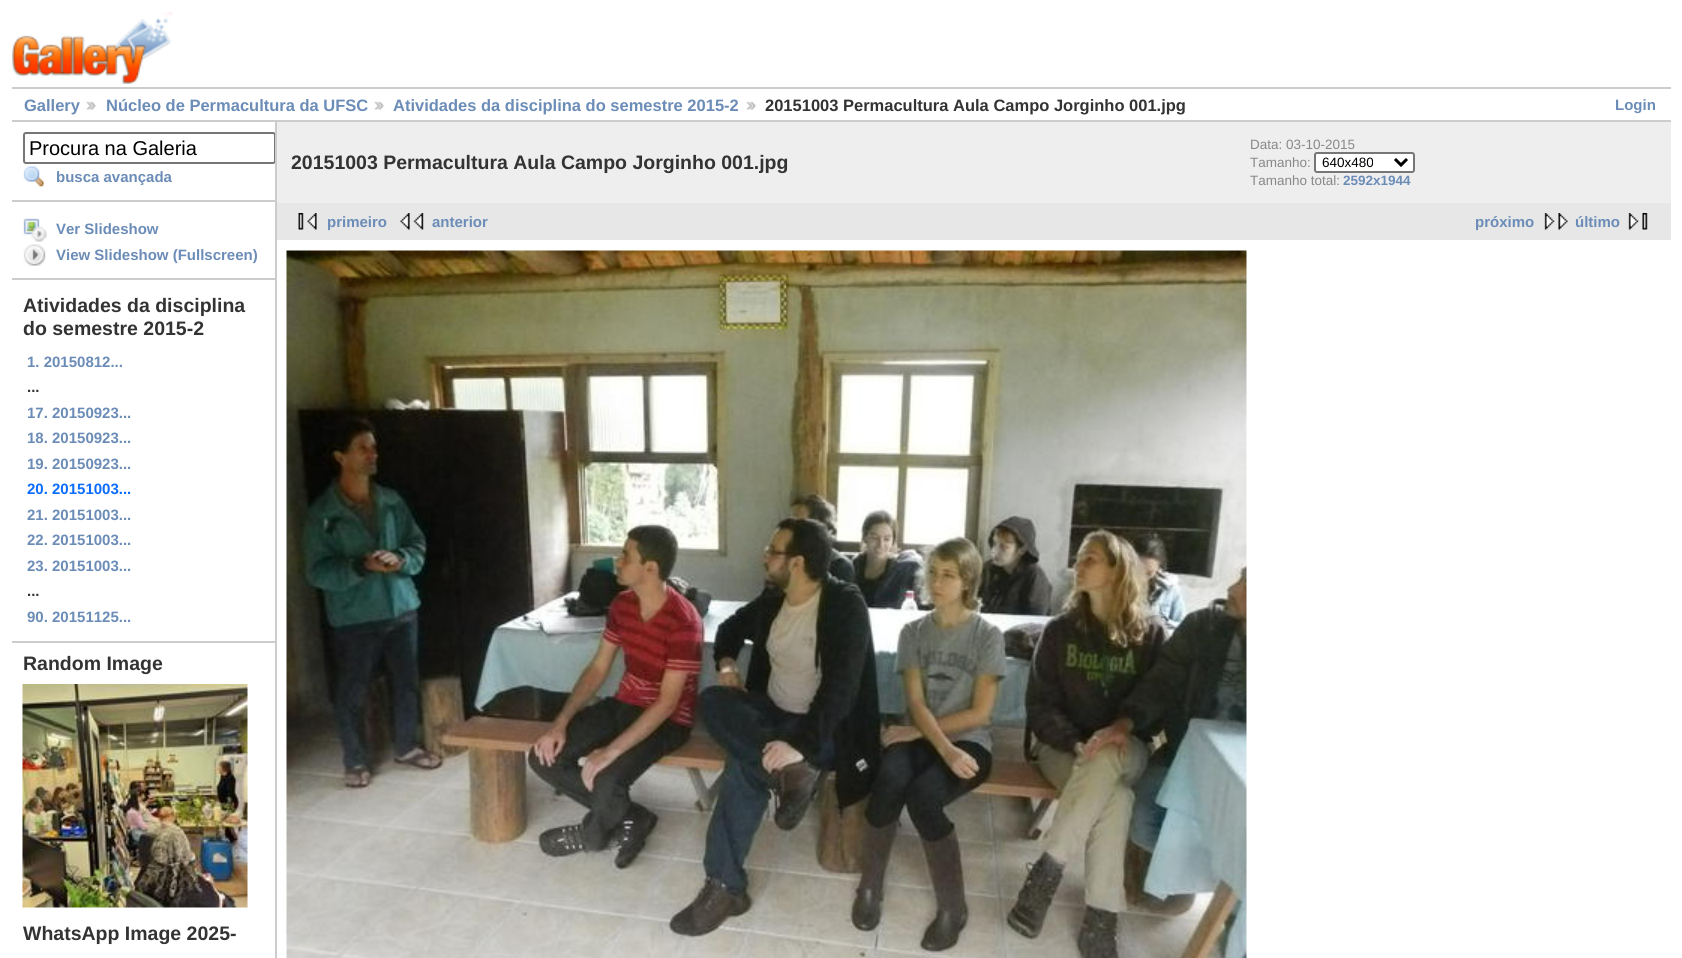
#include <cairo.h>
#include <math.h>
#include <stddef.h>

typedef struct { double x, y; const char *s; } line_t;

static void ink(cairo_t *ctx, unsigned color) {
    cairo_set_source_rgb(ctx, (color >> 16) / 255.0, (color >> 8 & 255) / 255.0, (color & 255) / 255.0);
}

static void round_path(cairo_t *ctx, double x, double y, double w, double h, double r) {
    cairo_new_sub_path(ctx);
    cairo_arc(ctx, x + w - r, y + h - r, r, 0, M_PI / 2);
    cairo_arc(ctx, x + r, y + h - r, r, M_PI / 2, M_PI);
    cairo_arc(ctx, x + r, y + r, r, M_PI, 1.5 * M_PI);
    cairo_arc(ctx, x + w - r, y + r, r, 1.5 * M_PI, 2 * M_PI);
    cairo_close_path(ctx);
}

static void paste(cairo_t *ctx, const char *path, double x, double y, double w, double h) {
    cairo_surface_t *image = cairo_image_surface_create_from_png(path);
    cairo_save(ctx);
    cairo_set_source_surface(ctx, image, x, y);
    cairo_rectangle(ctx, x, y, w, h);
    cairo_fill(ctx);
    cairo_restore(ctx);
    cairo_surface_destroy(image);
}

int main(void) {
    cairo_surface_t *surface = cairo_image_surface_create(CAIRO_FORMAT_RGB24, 1682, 958);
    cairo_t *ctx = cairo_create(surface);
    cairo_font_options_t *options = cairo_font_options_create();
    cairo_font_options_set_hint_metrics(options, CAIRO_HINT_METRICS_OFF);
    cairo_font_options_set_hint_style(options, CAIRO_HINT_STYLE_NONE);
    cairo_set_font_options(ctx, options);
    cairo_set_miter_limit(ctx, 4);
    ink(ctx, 0xFFFFFF);
    cairo_paint(ctx);
    paste(ctx, "media/1.png", 12, 12, 161, 72);
    ink(ctx, 0xCCCCCC);
    cairo_rectangle(ctx, 12, 87, 1659, 2);
    cairo_fill(ctx);
    cairo_rectangle(ctx, 12, 120, 1659, 2);
    cairo_fill(ctx);
    cairo_select_font_face(ctx, "Liberation Sans", CAIRO_FONT_SLANT_NORMAL, CAIRO_FONT_WEIGHT_BOLD);
    cairo_set_font_size(ctx, 16.5);
    ink(ctx, 0x6B8CB7);
    cairo_move_to(ctx, 24, 111);
    cairo_show_text(ctx, "Gallery");
    paste(ctx, "media/2.png", 86, 101, 11, 9);
    cairo_move_to(ctx, 106, 111);
    cairo_show_text(ctx, "Núcleo de Permacultura da UFSC");
    paste(ctx, "media/3.png", 374, 101, 11, 9);
    cairo_move_to(ctx, 393, 111);
    cairo_show_text(ctx, "Atividades da disciplina do semestre 2015-2");
    paste(ctx, "media/3.png", 746, 101, 11, 9);
    ink(ctx, 0x333333);
    cairo_move_to(ctx, 765, 111);
    cairo_show_text(ctx, "20151003 Permacultura Aula Campo Jorginho 001.jpg");
    cairo_set_font_size(ctx, 15);
    ink(ctx, 0x6B8CB7);
    cairo_move_to(ctx, 1615, 110);
    cairo_show_text(ctx, "Login");
    ink(ctx, 0xCCCCCC);
    cairo_rectangle(ctx, 275, 122, 2, 836);
    cairo_fill(ctx);
    cairo_rectangle(ctx, 12, 200, 263, 2);
    cairo_fill(ctx);
    cairo_save(ctx);
    cairo_rectangle(ctx, 12, 122, 263, 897);
    cairo_clip(ctx);
    round_path(ctx, 24, 133, 251, 30, 2);
    ink(ctx, 0x767676);
    cairo_stroke(ctx);
    cairo_restore(ctx);
    cairo_select_font_face(ctx, "Liberation Sans", CAIRO_FONT_SLANT_NORMAL, CAIRO_FONT_WEIGHT_NORMAL);
    cairo_set_font_size(ctx, 20);
    ink(ctx, 0x000000);
    cairo_move_to(ctx, 29, 155);
    cairo_show_text(ctx, "Procura na Galeria");
    paste(ctx, "media/4.png", 23, 166, 21, 22);
    cairo_select_font_face(ctx, "Liberation Sans", CAIRO_FONT_SLANT_NORMAL, CAIRO_FONT_WEIGHT_BOLD);
    cairo_set_font_size(ctx, 15);
    ink(ctx, 0x6B8CB7);
    cairo_move_to(ctx, 56, 182);
    cairo_show_text(ctx, "busca avançada");
    ink(ctx, 0xCCCCCC);
    cairo_rectangle(ctx, 12, 278, 263, 2);
    cairo_fill(ctx);
    paste(ctx, "media/5.png", 23, 218, 24, 24);
    ink(ctx, 0x6B8CB7);
    cairo_move_to(ctx, 56, 234);
    cairo_show_text(ctx, "Ver Slideshow");
    paste(ctx, "media/6.png", 23, 244, 23, 22);
    cairo_move_to(ctx, 56, 260);
    cairo_show_text(ctx, "View Slideshow (Fullscreen)");
    ink(ctx, 0xCCCCCC);
    cairo_rectangle(ctx, 12, 641, 263, 2);
    cairo_fill(ctx);
    cairo_set_font_size(ctx, 19.5);
    ink(ctx, 0x333333);
    cairo_move_to(ctx, 23, 312);
    cairo_show_text(ctx, "Atividades da disciplina");
    cairo_move_to(ctx, 23, 335);
    cairo_show_text(ctx, "do semestre 2015-2");
    cairo_set_font_size(ctx, 15);
    ink(ctx, 0x6B8CB7);
    cairo_move_to(ctx, 27, 367);
    cairo_show_text(ctx, "1. 20150812...");
    ink(ctx, 0x333333);
    cairo_move_to(ctx, 27, 392);
    cairo_show_text(ctx, "...");
    ink(ctx, 0x6B8CB7);
    {
        static const line_t items[] = {
            {27, 418, "17. 20150923..."},
            {27, 443, "18. 20150923..."},
            {27, 469, "19. 20150923..."},
        };
        for (size_t i = 0; i < sizeof items / sizeof *items; i++) {
            cairo_move_to(ctx, items[i].x, items[i].y);
            cairo_show_text(ctx, items[i].s);
        }
    }
    ink(ctx, 0x0B6CFF);
    cairo_move_to(ctx, 27, 494);
    cairo_show_text(ctx, "20. 20151003...");
    ink(ctx, 0x6B8CB7);
    {
        static const line_t items[] = {
            {27, 520, "21. 20151003..."},
            {27, 545, "22. 20151003..."},
            {27, 571, "23. 20151003..."},
        };
        for (size_t i = 0; i < sizeof items / sizeof *items; i++) {
            cairo_move_to(ctx, items[i].x, items[i].y);
            cairo_show_text(ctx, items[i].s);
        }
    }
    ink(ctx, 0x333333);
    cairo_move_to(ctx, 27, 596);
    cairo_show_text(ctx, "...");
    ink(ctx, 0x6B8CB7);
    cairo_move_to(ctx, 27, 622);
    cairo_show_text(ctx, "90. 20151125...");
    cairo_set_font_size(ctx, 19.5);
    ink(ctx, 0x333333);
    cairo_move_to(ctx, 23, 670);
    cairo_show_text(ctx, "Random Image");
    paste(ctx, "media/7.png", 22, 684, 226, 224);
    cairo_move_to(ctx, 23, 940);
    cairo_show_text(ctx, "WhatsApp Image 2025-");
    ink(ctx, 0xEEEEEE);
    cairo_rectangle(ctx, 277, 122, 1394, 81);
    cairo_fill(ctx);
    ink(ctx, 0x333333);
    cairo_move_to(ctx, 291, 169);
    cairo_show_text(ctx, "20151003 Permacultura Aula Campo Jorginho 001.jpg");
    cairo_select_font_face(ctx, "Liberation Sans", CAIRO_FONT_SLANT_NORMAL, CAIRO_FONT_WEIGHT_NORMAL);
    cairo_set_font_size(ctx, 13.5);
    ink(ctx, 0x888888);
    cairo_move_to(ctx, 1250, 149);
    cairo_show_text(ctx, "Data: 03-10-2015");
    cairo_move_to(ctx, 1250, 167);
    cairo_show_text(ctx, "Tamanho:");
    ink(ctx, 0xFFFFFF);
    round_path(ctx, 1315, 153, 99, 19, 2);
    cairo_fill_preserve(ctx);
    ink(ctx, 0x767676);
    cairo_stroke(ctx);
    cairo_new_path(ctx);
    cairo_move_to(ctx, 1395, 159);
    cairo_line_to(ctx, 1401, 165);
    cairo_line_to(ctx, 1407, 159);
    ink(ctx, 0x000000);
    cairo_set_line_width(ctx, 3);
    cairo_stroke(ctx);
    cairo_move_to(ctx, 1322, 167);
    cairo_show_text(ctx, "640x480");
    ink(ctx, 0x888888);
    cairo_move_to(ctx, 1250, 185);
    cairo_show_text(ctx, "Tamanho total:");
    cairo_select_font_face(ctx, "Liberation Sans", CAIRO_FONT_SLANT_NORMAL, CAIRO_FONT_WEIGHT_BOLD);
    ink(ctx, 0x6B8CB7);
    cairo_move_to(ctx, 1343, 185);
    cairo_show_text(ctx, "2592x1944");
    ink(ctx, 0xE7E7E7);
    cairo_rectangle(ctx, 277, 203, 1394, 37);
    cairo_fill(ctx);
    paste(ctx, "media/8.png", 298, 213, 19, 17);
    cairo_set_font_size(ctx, 15);
    ink(ctx, 0x6B8CB7);
    cairo_move_to(ctx, 327, 227);
    cairo_show_text(ctx, "primeiro");
    paste(ctx, "media/9.png", 400, 213, 24, 17);
    cairo_move_to(ctx, 432, 227);
    cairo_show_text(ctx, "anterior");
    cairo_move_to(ctx, 1475, 227);
    cairo_show_text(ctx, "próximo");
    paste(ctx, "media/10.png", 1544, 213, 24, 17);
    cairo_move_to(ctx, 1575, 227);
    cairo_show_text(ctx, "último");
    paste(ctx, "media/11.png", 1628, 213, 20, 17);
    paste(ctx, "media/12.png", 286, 250, 961, 708);
    cairo_surface_write_to_png(surface, "image.png");
    cairo_font_options_destroy(options);
    cairo_destroy(ctx);
    cairo_surface_destroy(surface);
    return 0;
}
